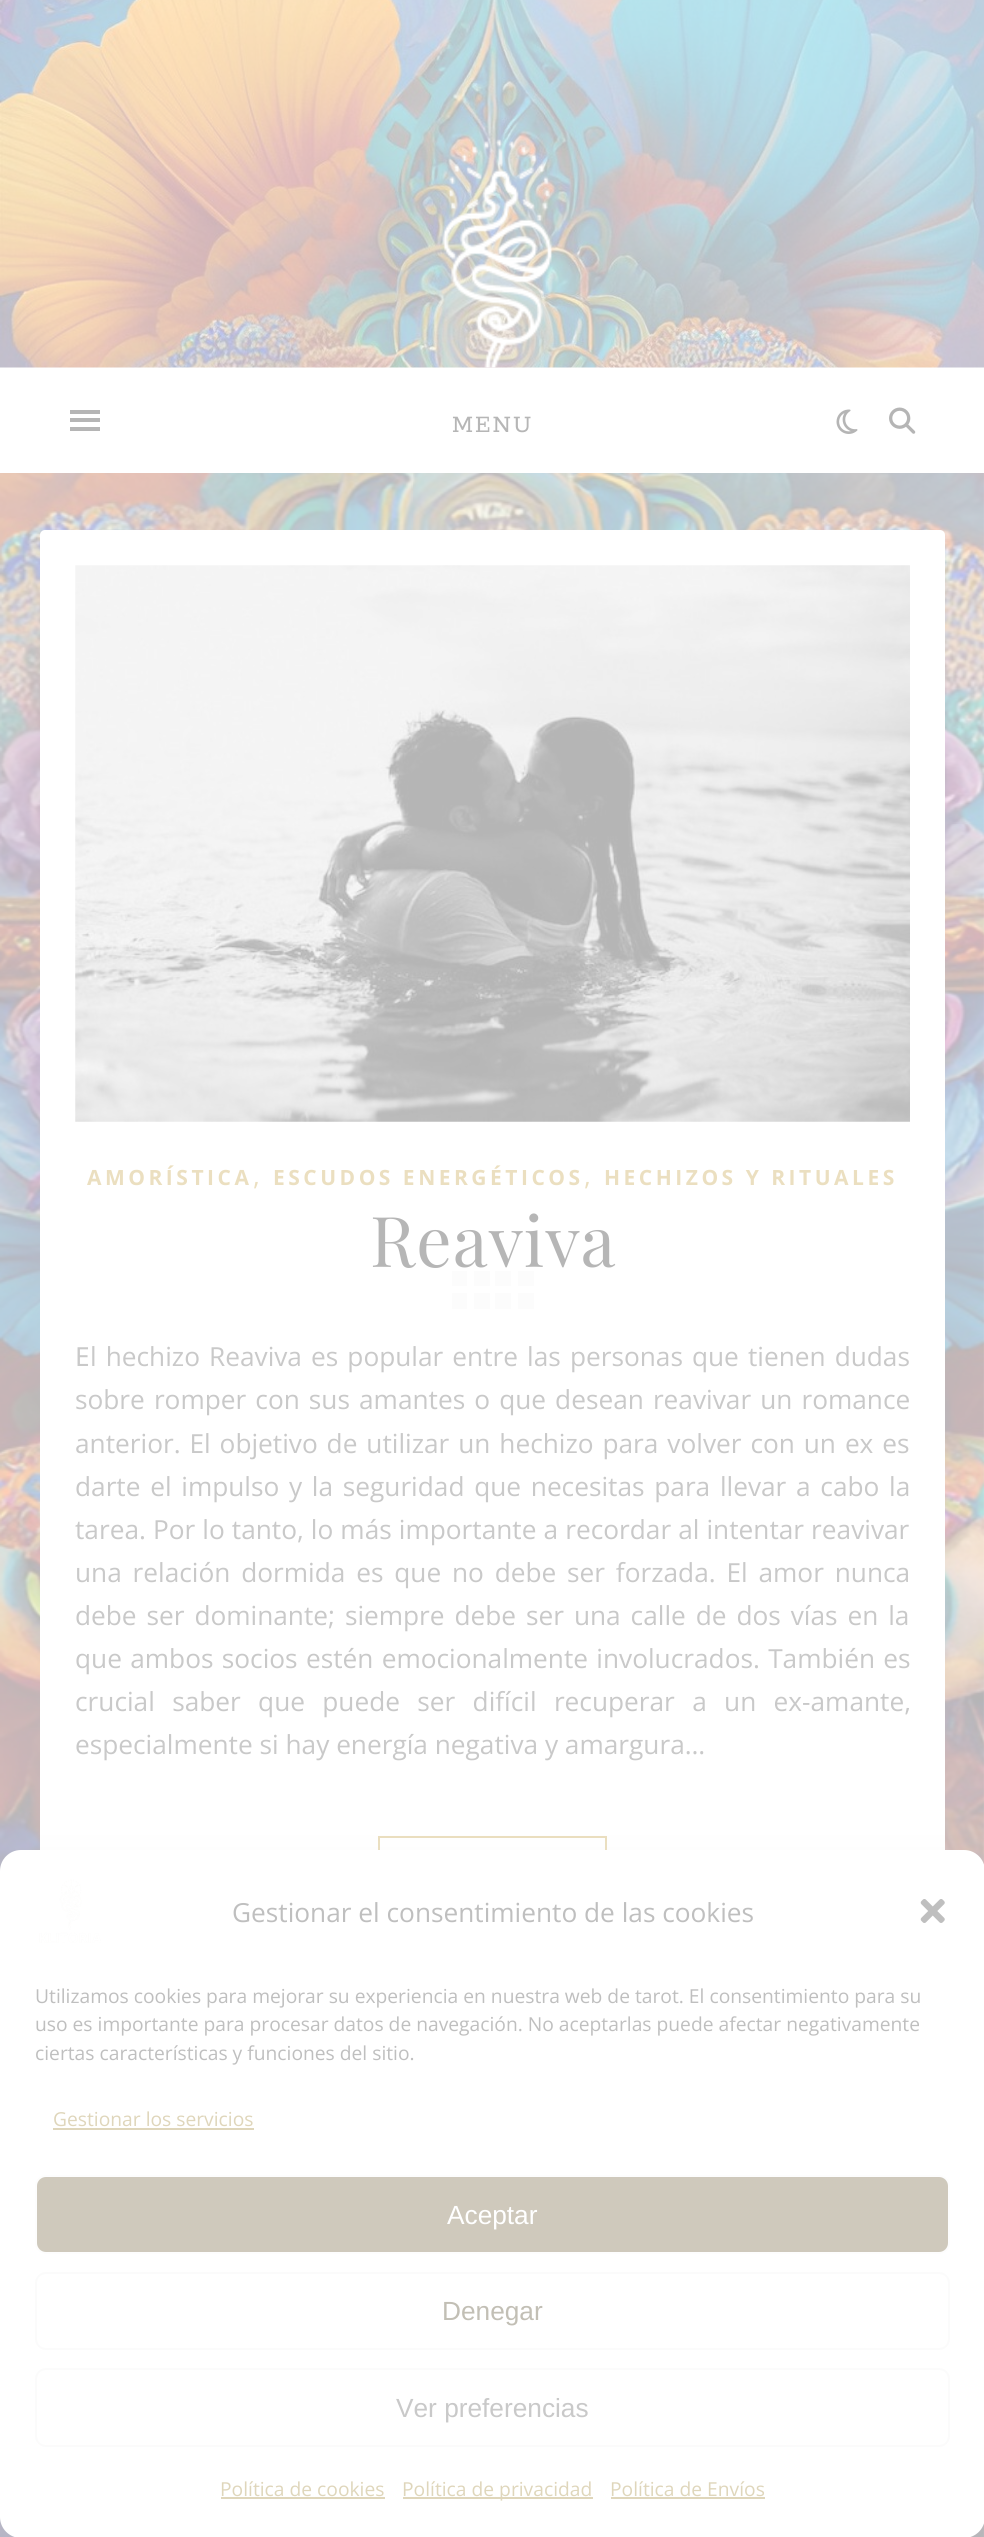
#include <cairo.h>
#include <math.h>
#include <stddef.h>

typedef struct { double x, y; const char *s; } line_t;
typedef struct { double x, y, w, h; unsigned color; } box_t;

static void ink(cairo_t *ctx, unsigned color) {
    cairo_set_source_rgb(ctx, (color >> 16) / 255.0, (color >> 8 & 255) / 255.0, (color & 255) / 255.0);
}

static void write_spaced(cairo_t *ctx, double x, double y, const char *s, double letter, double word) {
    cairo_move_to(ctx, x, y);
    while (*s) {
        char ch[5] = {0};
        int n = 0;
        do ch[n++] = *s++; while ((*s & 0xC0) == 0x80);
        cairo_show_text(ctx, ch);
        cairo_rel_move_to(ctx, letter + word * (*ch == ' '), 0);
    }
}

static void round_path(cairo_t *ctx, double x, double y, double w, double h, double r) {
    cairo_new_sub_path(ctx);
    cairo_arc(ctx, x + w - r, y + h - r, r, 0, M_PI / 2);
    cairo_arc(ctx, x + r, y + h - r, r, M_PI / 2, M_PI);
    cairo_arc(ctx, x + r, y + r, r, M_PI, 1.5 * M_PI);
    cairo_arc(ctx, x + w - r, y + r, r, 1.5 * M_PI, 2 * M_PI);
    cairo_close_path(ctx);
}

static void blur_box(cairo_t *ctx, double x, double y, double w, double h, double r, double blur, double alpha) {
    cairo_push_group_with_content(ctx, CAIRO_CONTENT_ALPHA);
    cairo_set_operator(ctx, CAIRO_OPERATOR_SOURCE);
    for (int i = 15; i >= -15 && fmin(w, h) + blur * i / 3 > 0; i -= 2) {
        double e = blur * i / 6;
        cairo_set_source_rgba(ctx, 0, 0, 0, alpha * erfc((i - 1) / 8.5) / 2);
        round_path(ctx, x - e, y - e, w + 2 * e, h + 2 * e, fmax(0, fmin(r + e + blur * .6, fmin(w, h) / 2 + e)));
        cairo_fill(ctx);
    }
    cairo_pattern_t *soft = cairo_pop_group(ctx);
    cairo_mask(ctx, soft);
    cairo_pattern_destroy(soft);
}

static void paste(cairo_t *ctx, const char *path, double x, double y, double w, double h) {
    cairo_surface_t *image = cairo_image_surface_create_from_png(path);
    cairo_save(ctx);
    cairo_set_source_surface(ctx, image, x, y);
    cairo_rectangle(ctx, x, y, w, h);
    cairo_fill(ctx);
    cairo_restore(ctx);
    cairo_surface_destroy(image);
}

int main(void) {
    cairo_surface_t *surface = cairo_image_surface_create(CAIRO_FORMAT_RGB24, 984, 2537);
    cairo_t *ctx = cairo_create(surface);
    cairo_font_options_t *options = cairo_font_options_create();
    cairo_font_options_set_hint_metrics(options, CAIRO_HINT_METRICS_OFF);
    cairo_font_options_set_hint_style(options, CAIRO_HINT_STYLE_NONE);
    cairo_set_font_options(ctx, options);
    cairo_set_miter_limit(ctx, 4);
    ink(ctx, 0xFFFFFF);
    cairo_paint(ctx);
    paste(ctx, "media/1.png", 0, 473, 984, 2064);
    paste(ctx, "media/2.png", 0, 0, 984, 368);
    paste(ctx, "media/3.png", 442, 139, 111, 229);
    {
        static const box_t items[] = {
            {70, 410, 30, 4, 0xB5B5B5},
            {70, 418, 30, 4, 0xB5B5B5},
            {70, 427, 30, 4, 0xB5B5B5},
        };
        for (size_t i = 0; i < sizeof items / sizeof *items; i++) {
            ink(ctx, items[i].color);
            cairo_rectangle(ctx, items[i].x, items[i].y, items[i].w, items[i].h);
            cairo_fill(ctx);
        }
    }
    cairo_select_font_face(ctx, "Rokkitt SemiBold", CAIRO_FONT_SLANT_NORMAL, CAIRO_FONT_WEIGHT_NORMAL);
    cairo_set_font_size(ctx, 26.25);
    ink(ctx, 0xB6B6B6);
    write_spaced(ctx, 452, 432, "MENU", 2, 0);
    paste(ctx, "media/4.png", 836, 409, 22, 25);
    paste(ctx, "media/5.png", 889, 407, 27, 27);
    ink(ctx, 0xFFFFFF);
    round_path(ctx, 40, 530, 905, 1528, 5);
    cairo_fill(ctx);
    paste(ctx, "media/6.png", 75, 565, 835, 557);
    cairo_select_font_face(ctx, "Open Sans", CAIRO_FONT_SLANT_NORMAL, CAIRO_FONT_WEIGHT_BOLD);
    cairo_set_font_size(ctx, 21);
    ink(ctx, 0xEBDFC0);
    write_spaced(ctx, 87, 1185, "AMORÍSTICA", 3.5, 0);
    cairo_select_font_face(ctx, "Open Sans", CAIRO_FONT_SLANT_NORMAL, CAIRO_FONT_WEIGHT_NORMAL);
    cairo_set_font_size(ctx, 26.25);
    cairo_move_to(ctx, 253, 1185);
    cairo_show_text(ctx, ",");
    cairo_select_font_face(ctx, "Open Sans", CAIRO_FONT_SLANT_NORMAL, CAIRO_FONT_WEIGHT_BOLD);
    cairo_set_font_size(ctx, 21);
    write_spaced(ctx, 273, 1185, "ESCUDOS ENERGÉTICOS", 3.5, 0);
    cairo_select_font_face(ctx, "Open Sans", CAIRO_FONT_SLANT_NORMAL, CAIRO_FONT_WEIGHT_NORMAL);
    cairo_set_font_size(ctx, 26.25);
    cairo_move_to(ctx, 584, 1185);
    cairo_show_text(ctx, ",");
    cairo_select_font_face(ctx, "Open Sans", CAIRO_FONT_SLANT_NORMAL, CAIRO_FONT_WEIGHT_BOLD);
    cairo_set_font_size(ctx, 21);
    write_spaced(ctx, 604, 1185, "HECHIZOS Y RITUALES", 3.5, 0);
    cairo_select_font_face(ctx, "Playfair Display", CAIRO_FONT_SLANT_NORMAL, CAIRO_FONT_WEIGHT_NORMAL);
    cairo_set_font_size(ctx, 70);
    ink(ctx, 0xB6B6B6);
    write_spaced(ctx, 370, 1267, "Reaviva", 1, 0);
    cairo_select_font_face(ctx, "Noto Sans", CAIRO_FONT_SLANT_NORMAL, CAIRO_FONT_WEIGHT_NORMAL);
    cairo_set_font_size(ctx, 26.25);
    ink(ctx, 0xC9C9C9);
    cairo_move_to(ctx, 75, 1366);
    cairo_show_text(ctx, "E");
    cairo_select_font_face(ctx, "Open Sans", CAIRO_FONT_SLANT_NORMAL, CAIRO_FONT_WEIGHT_NORMAL);
    write_spaced(ctx, 90, 1366, "l hechizo Reaviva es popular entre las personas que tienen dudas", 0, 2.25);
    write_spaced(ctx, 75, 1409, "sobre romper con sus amantes o que desean reavivar un romance", 0, 2.25);
    write_spaced(ctx, 75, 1453, "anterior. El objetivo de utilizar un hechizo para volver con un ex es", 0, 2.1);
    write_spaced(ctx, 75, 1496, "darte el impulso y la seguridad que necesitas para llevar a cabo la", 0, 2.9);
    write_spaced(ctx, 75, 1539, "tarea. Por lo tanto, lo más importante a recordar al intentar reavivar", 0, 0.25);
    write_spaced(ctx, 75, 1582, "una relación dormida es que no debe ser forzada. El amor nunca", 0, 4);
    write_spaced(ctx, 75, 1625, "debe ser dominante; siempre debe ser una calle de dos vías en la", 0, 3.1);
    write_spaced(ctx, 75, 1668, "que ambos socios estén emocionalmente involucrados. También es", 0, 1.5);
    write_spaced(ctx, 75, 1711, "crucial saber que puede ser difícil recuperar a un ex-amante,", 0, 10.5);
    cairo_move_to(ctx, 75, 1754);
    cairo_show_text(ctx, "especialmente si hay energía negativa y amargura…");
    cairo_rectangle(ctx, 379, 1837, 227, 71);
    ink(ctx, 0xEBDFC0);
    cairo_stroke(ctx);
    {
        static const box_t items[] = {
            {452, 1271, 15, 15, 0xFCFCFC},
            {474, 1271, 16, 15, 0xFCFCFC},
            {495, 1271, 16, 15, 0xFCFCFC},
            {518, 1271, 16, 15, 0xFCFCFC},
            {452, 1293, 15, 16, 0xFCFCFC},
            {474, 1293, 16, 16, 0xFCFCFC},
            {495, 1293, 16, 16, 0xFCFCFC},
            {518, 1293, 16, 16, 0xFCFCFC},
        };
        for (size_t i = 0; i < sizeof items / sizeof *items; i++) {
            ink(ctx, items[i].color);
            cairo_rectangle(ctx, items[i].x, items[i].y, items[i].w, items[i].h);
            cairo_fill(ctx);
        }
    }
    ink(ctx, 0xB5B5B5);
    blur_box(ctx, 0, 1860, 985, 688, 21, 5, 0.23);
    blur_box(ctx, 0, 1867, 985, 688, 21, 17.5, 0.19);
    ink(ctx, 0xFFFFFF);
    round_path(ctx, 0, 1850, 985, 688, 21);
    cairo_fill(ctx);
    paste(ctx, "media/7.png", 39, 1879, 62, 64);
    ink(ctx, 0xBFBFBF);
    cairo_move_to(ctx, 232, 1922);
    cairo_show_text(ctx, "Gestionar el consentimiento de las cookies");
    paste(ctx, "media/8.png", 920, 1899, 25, 24);
    cairo_set_font_size(ctx, 19.25);
    {
        static const line_t items[] = {
            {35, 2003, "Utilizamos cookies para mejorar su experiencia en nuestra web de tarot. El consentimiento para su"},
            {35, 2031, "uso es importante para procesar datos de navegación. No aceptarlas puede afectar negativamente"},
            {35, 2060, "ciertas características y funciones del sitio."},
        };
        for (size_t i = 0; i < sizeof items / sizeof *items; i++) {
            cairo_move_to(ctx, items[i].x, items[i].y);
            cairo_show_text(ctx, items[i].s);
        }
    }
    ink(ctx, 0xDFD6BB);
    cairo_move_to(ctx, 53, 2126);
    cairo_show_text(ctx, "Gestionar los servicios");
    cairo_rectangle(ctx, 53, 2128, 201, 2);
    cairo_fill(ctx);
    ink(ctx, 0xCFC9BC);
    round_path(ctx, 36, 2176, 913, 77, 10);
    cairo_fill_preserve(ctx);
    ink(ctx, 0xFDFDFD);
    cairo_stroke(ctx);
    cairo_select_font_face(ctx, "Liberation Sans", CAIRO_FONT_SLANT_NORMAL, CAIRO_FONT_WEIGHT_NORMAL);
    cairo_set_font_size(ctx, 26.25);
    ink(ctx, 0xFFFFFF);
    cairo_move_to(ctx, 447, 2224);
    cairo_show_text(ctx, "Aceptar");
    round_path(ctx, 36, 2273, 913, 76, 10);
    ink(ctx, 0xFBFBFB);
    cairo_stroke(ctx);
    ink(ctx, 0xC2BFB5);
    cairo_move_to(ctx, 442, 2320);
    cairo_show_text(ctx, "Denegar");
    round_path(ctx, 36, 2369, 913, 77, 10);
    ink(ctx, 0xFBFBFB);
    cairo_stroke(ctx);
    ink(ctx, 0xC9C9C9);
    cairo_move_to(ctx, 396, 2417);
    cairo_show_text(ctx, "Ver preferencias");
    cairo_select_font_face(ctx, "Open Sans", CAIRO_FONT_SLANT_NORMAL, CAIRO_FONT_WEIGHT_NORMAL);
    cairo_set_font_size(ctx, 19.25);
    ink(ctx, 0xDFD6BB);
    cairo_move_to(ctx, 220, 2496);
    cairo_show_text(ctx, "Política de cookies");
    cairo_rectangle(ctx, 221, 2497, 164, 2);
    cairo_fill(ctx);
    cairo_rectangle(ctx, 403, 2497, 190, 2);
    cairo_fill(ctx);
    cairo_move_to(ctx, 402, 2496);
    cairo_show_text(ctx, "Política de privacidad");
    cairo_move_to(ctx, 610, 2496);
    cairo_show_text(ctx, "Política de Envíos");
    cairo_rectangle(ctx, 611, 2497, 154, 2);
    cairo_fill(ctx);
    cairo_surface_write_to_png(surface, "image.png");
    cairo_font_options_destroy(options);
    cairo_destroy(ctx);
    cairo_surface_destroy(surface);
    return 0;
}
